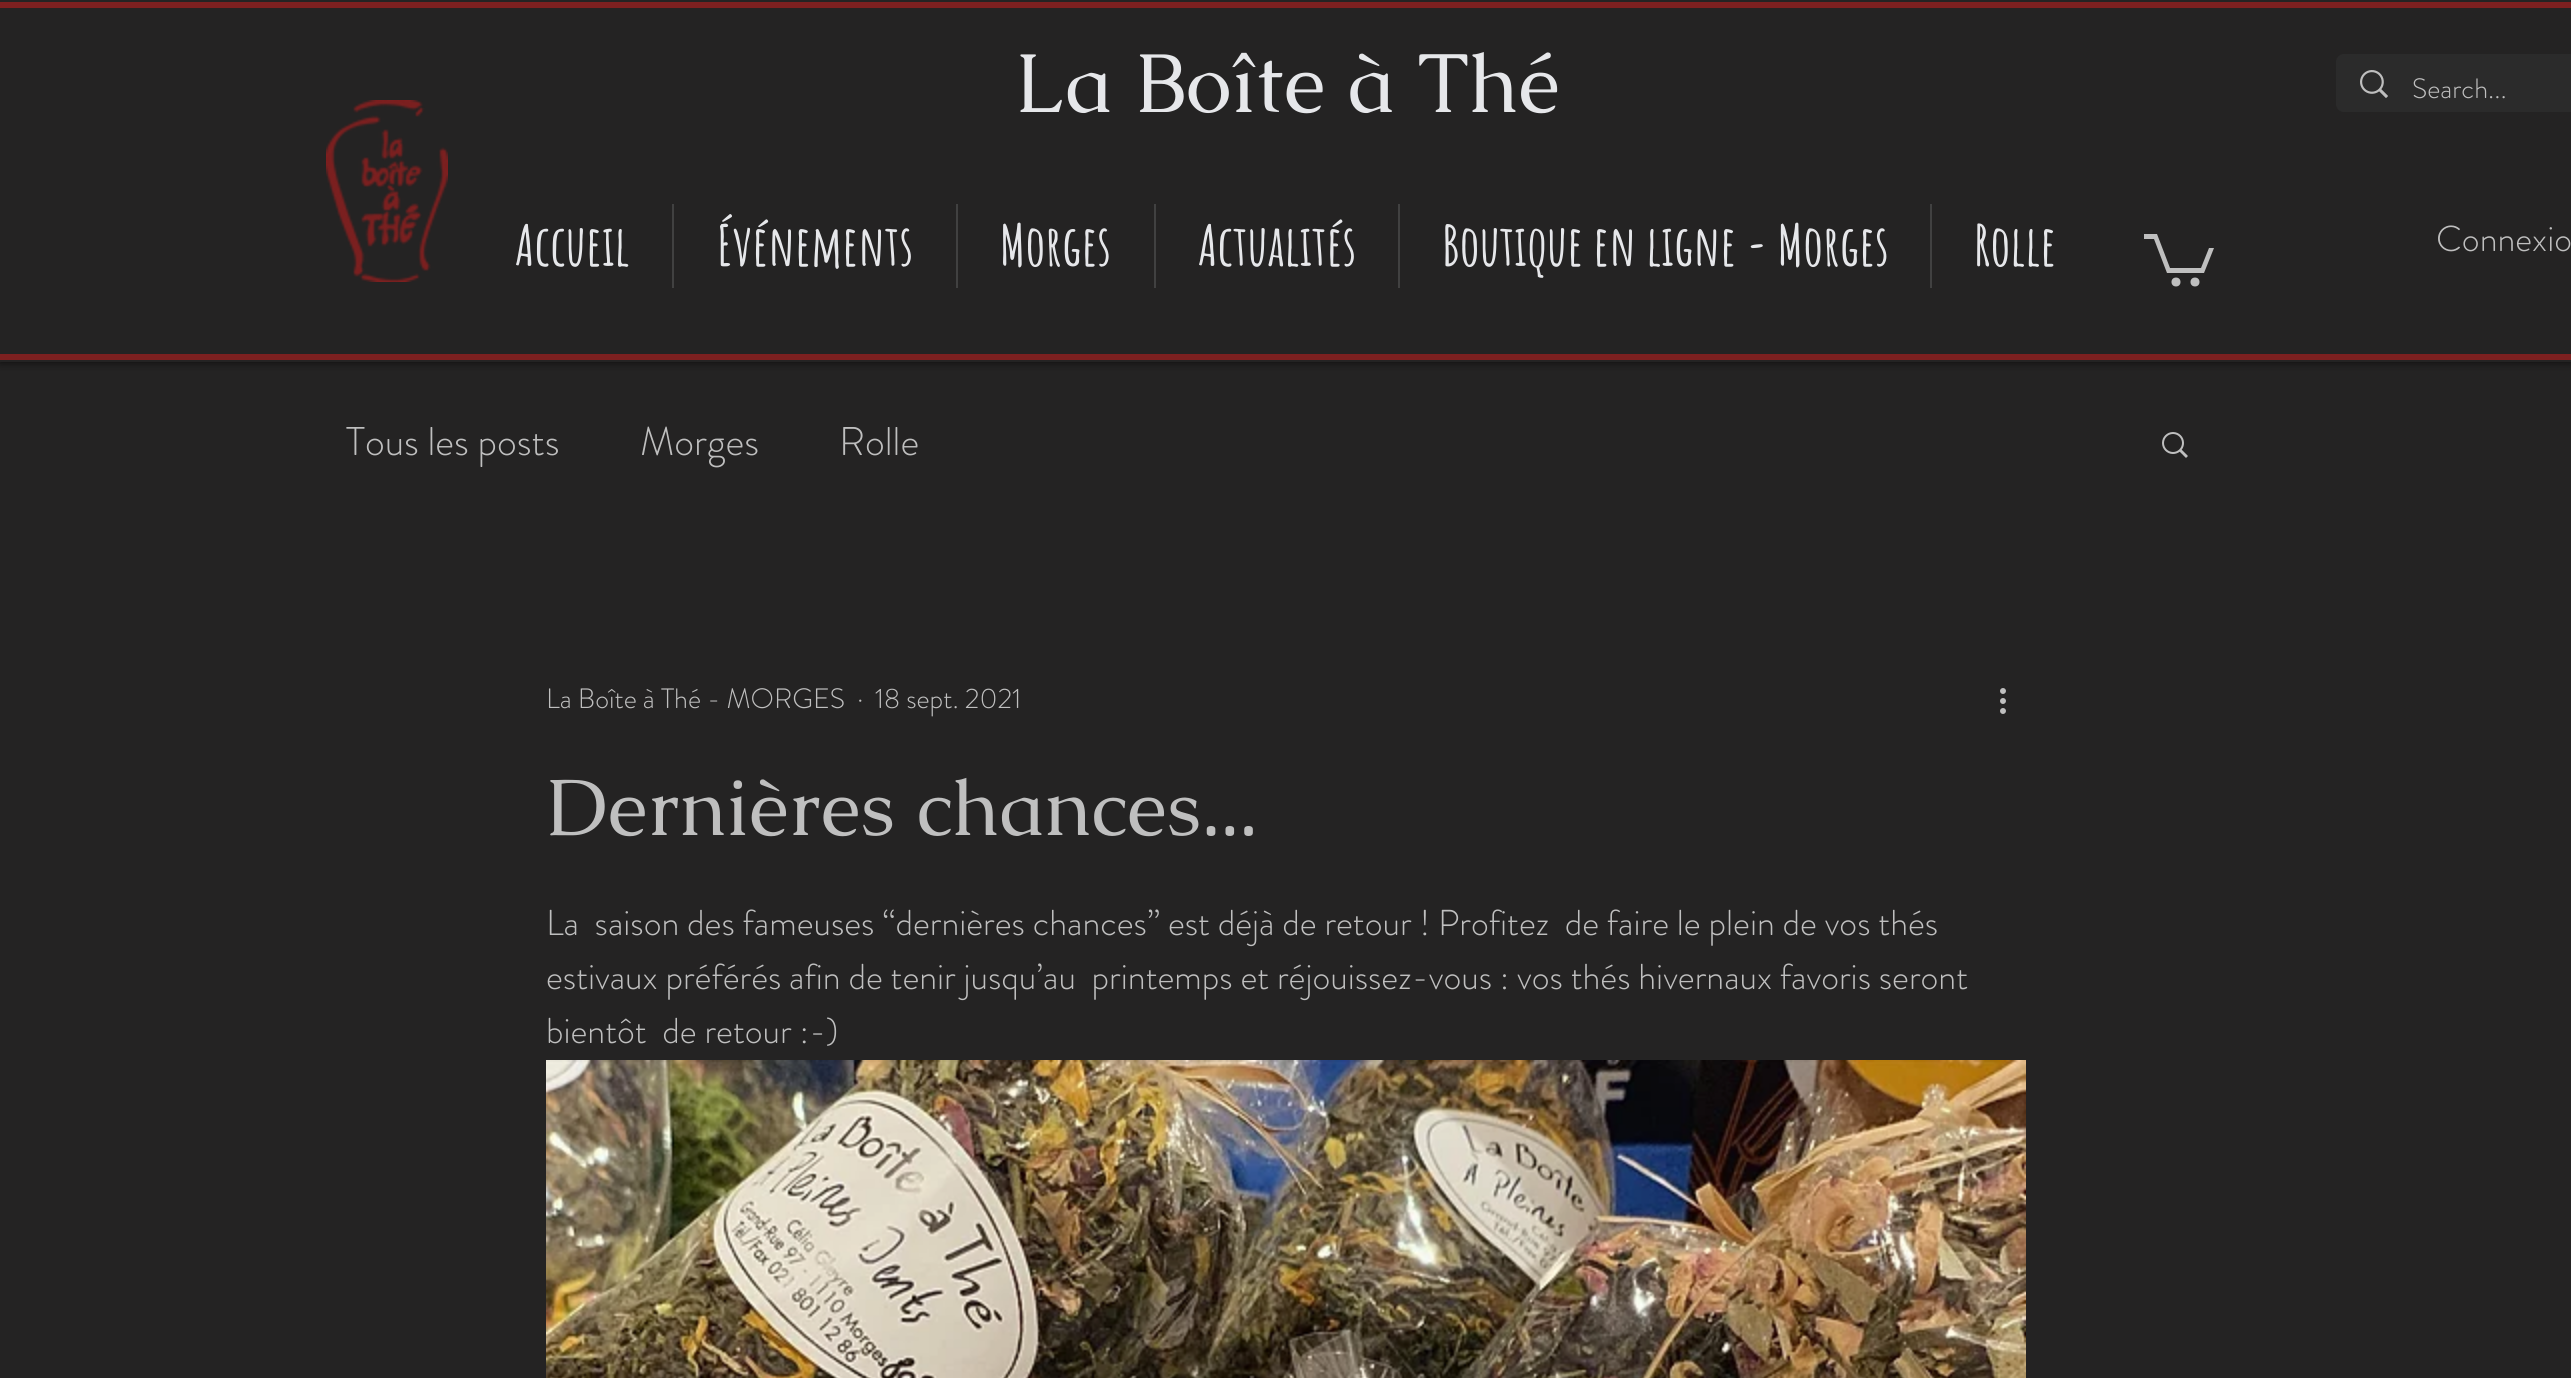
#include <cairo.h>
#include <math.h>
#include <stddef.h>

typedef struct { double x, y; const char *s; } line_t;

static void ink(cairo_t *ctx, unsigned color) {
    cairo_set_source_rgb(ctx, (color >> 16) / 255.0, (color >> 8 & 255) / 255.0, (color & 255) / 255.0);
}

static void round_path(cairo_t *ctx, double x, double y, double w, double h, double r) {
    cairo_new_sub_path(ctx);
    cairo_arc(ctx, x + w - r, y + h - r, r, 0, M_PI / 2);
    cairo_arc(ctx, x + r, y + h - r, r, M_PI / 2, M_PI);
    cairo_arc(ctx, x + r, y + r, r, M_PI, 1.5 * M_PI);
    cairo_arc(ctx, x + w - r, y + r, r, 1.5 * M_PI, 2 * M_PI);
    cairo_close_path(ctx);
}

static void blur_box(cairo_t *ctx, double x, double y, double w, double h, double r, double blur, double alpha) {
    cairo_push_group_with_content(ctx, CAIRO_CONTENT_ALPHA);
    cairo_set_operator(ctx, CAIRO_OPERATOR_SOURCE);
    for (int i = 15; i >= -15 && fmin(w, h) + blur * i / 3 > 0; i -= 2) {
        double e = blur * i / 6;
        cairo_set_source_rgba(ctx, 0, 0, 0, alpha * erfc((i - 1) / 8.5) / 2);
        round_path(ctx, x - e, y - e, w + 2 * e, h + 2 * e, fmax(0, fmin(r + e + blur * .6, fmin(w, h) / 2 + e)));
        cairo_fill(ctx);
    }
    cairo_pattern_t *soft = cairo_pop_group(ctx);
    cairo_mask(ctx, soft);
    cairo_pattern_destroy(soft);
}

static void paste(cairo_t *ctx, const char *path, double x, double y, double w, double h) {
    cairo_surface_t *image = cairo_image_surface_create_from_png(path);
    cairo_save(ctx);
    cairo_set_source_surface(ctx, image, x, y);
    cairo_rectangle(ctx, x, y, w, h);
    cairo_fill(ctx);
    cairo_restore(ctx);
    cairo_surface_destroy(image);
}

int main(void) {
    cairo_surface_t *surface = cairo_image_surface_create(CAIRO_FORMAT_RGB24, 2571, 1378);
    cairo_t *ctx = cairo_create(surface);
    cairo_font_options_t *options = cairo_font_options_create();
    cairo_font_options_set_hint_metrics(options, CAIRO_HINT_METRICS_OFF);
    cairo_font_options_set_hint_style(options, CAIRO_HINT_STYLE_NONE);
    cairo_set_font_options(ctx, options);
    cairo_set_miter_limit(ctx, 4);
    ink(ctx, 0x242323);
    cairo_paint(ctx);
    cairo_save(ctx);
    cairo_rectangle(ctx, 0, 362, 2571, 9);
    cairo_clip(ctx);
    ink(ctx, 0x000000);
    blur_box(ctx, 0, 0, 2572, 362, 0, 5, 0.7);
    cairo_restore(ctx);
    ink(ctx, 0x7D2020);
    cairo_rectangle(ctx, 0, 2, 2571, 6);
    cairo_fill(ctx);
    cairo_rectangle(ctx, 0, 354, 2571, 6);
    cairo_fill(ctx);
    cairo_select_font_face(ctx, "Caudex", CAIRO_FONT_SLANT_NORMAL, CAIRO_FONT_WEIGHT_NORMAL);
    cairo_set_font_size(ctx, 84);
    ink(ctx, 0xE6E7EA);
    cairo_move_to(ctx, 1014, 112);
    cairo_show_text(ctx, "La Boîte à Thé");
    ink(ctx, 0x2B2B2B);
    round_path(ctx, 2336, 54, 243, 58, 8);
    cairo_fill(ctx);
    paste(ctx, "media/1.png", 2360, 70, 28, 28);
    cairo_select_font_face(ctx, "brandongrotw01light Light", CAIRO_FONT_SLANT_NORMAL, CAIRO_FONT_WEIGHT_NORMAL);
    cairo_set_font_size(ctx, 28);
    ink(ctx, 0xBFBFBF);
    cairo_move_to(ctx, 2412, 98);
    cairo_show_text(ctx, "Search...");
    paste(ctx, "media/2.png", 326, 100, 122, 182);
    cairo_select_font_face(ctx, "Amatic SC", CAIRO_FONT_SLANT_NORMAL, CAIRO_FONT_WEIGHT_BOLD);
    cairo_set_font_size(ctx, 56);
    ink(ctx, 0xE6E7EA);
    cairo_move_to(ctx, 515, 266);
    cairo_show_text(ctx, "Accueil");
    ink(ctx, 0x414141);
    cairo_rectangle(ctx, 672, 204, 2, 84);
    cairo_fill(ctx);
    ink(ctx, 0xE6E7EA);
    cairo_move_to(ctx, 717, 266);
    cairo_show_text(ctx, "Événements");
    ink(ctx, 0x414141);
    cairo_rectangle(ctx, 956, 204, 2, 84);
    cairo_fill(ctx);
    ink(ctx, 0xE6E7EA);
    cairo_move_to(ctx, 1000, 266);
    cairo_show_text(ctx, "Morges");
    ink(ctx, 0x414141);
    cairo_rectangle(ctx, 1154, 204, 2, 84);
    cairo_fill(ctx);
    ink(ctx, 0xE6E7EA);
    cairo_move_to(ctx, 1198, 266);
    cairo_show_text(ctx, "Actualités");
    ink(ctx, 0x414141);
    cairo_rectangle(ctx, 1398, 204, 2, 84);
    cairo_fill(ctx);
    ink(ctx, 0xE6E7EA);
    cairo_move_to(ctx, 1442, 266);
    cairo_show_text(ctx, "Boutique en ligne - Morges");
    ink(ctx, 0x414141);
    cairo_rectangle(ctx, 1930, 204, 2, 84);
    cairo_fill(ctx);
    ink(ctx, 0xE6E7EA);
    cairo_move_to(ctx, 1974, 266);
    cairo_show_text(ctx, "Rolle");
    ink(ctx, 0xBFBFBF);
    cairo_new_path(ctx);
    cairo_move_to(ctx, 2214, 248);
    cairo_line_to(ctx, 2204, 273);
    cairo_line_to(ctx, 2167, 273);
    cairo_line_to(ctx, 2154, 239);
    cairo_line_to(ctx, 2144, 239);
    cairo_line_to(ctx, 2144, 234);
    cairo_line_to(ctx, 2157, 234);
    cairo_line_to(ctx, 2170, 268);
    cairo_line_to(ctx, 2201, 268);
    cairo_line_to(ctx, 2209, 248);
    cairo_fill(ctx);
    cairo_arc(ctx, 2195, 282, 4.5, 0, 2 * M_PI);
    cairo_fill(ctx);
    cairo_arc(ctx, 2176, 282, 4.5, 0, 2 * M_PI);
    cairo_fill(ctx);
    cairo_select_font_face(ctx, "brandongrotw01light Light", CAIRO_FONT_SLANT_NORMAL, CAIRO_FONT_WEIGHT_NORMAL);
    cairo_set_font_size(ctx, 36);
    cairo_move_to(ctx, 2436, 251);
    cairo_show_text(ctx, "Connexio");
    cairo_set_font_size(ctx, 40);
    {
        static const line_t items[] = {
            {346, 455, "Tous les posts"},
            {640, 455, "Morges"},
            {839, 455, "Rolle"},
        };
        for (size_t i = 0; i < sizeof items / sizeof *items; i++) {
            cairo_move_to(ctx, items[i].x, items[i].y);
            cairo_show_text(ctx, items[i].s);
        }
    }
    paste(ctx, "media/3.png", 2162, 432, 26, 26);
    cairo_set_font_size(ctx, 28);
    {
        static const line_t items[] = {
            {546, 708, "La Boîte à Thé - MORGES"},
            {857, 708, "·"},
            {875, 708, "18 sept. 2021"},
        };
        for (size_t i = 0; i < sizeof items / sizeof *items; i++) {
            cairo_move_to(ctx, items[i].x, items[i].y);
            cairo_show_text(ctx, items[i].s);
        }
    }
    paste(ctx, "media/4.png", 2000, 688, 6, 26);
    cairo_select_font_face(ctx, "Caudex", CAIRO_FONT_SLANT_NORMAL, CAIRO_FONT_WEIGHT_NORMAL);
    cairo_set_font_size(ctx, 80);
    cairo_move_to(ctx, 546, 835);
    cairo_show_text(ctx, "Dernières chances...");
    cairo_select_font_face(ctx, "brandongrotw01light Light", CAIRO_FONT_SLANT_NORMAL, CAIRO_FONT_WEIGHT_NORMAL);
    cairo_set_font_size(ctx, 36);
    {
        static const line_t items[] = {
            {546, 935, "La  saison des fameuses “dernières chances” est déjà de retour ! Profitez  de faire le plein de vos thés"},
            {546, 989, "estivaux préférés afin de tenir jusqu’au  printemps et réjouissez-vous : vos thés hivernaux favoris seront"},
            {546, 1043, "bientôt  de retour :-)"},
        };
        for (size_t i = 0; i < sizeof items / sizeof *items; i++) {
            cairo_move_to(ctx, items[i].x, items[i].y);
            cairo_show_text(ctx, items[i].s);
        }
    }
    paste(ctx, "media/5.png", 546, 1060, 1480, 318);
    cairo_surface_write_to_png(surface, "image.png");
    cairo_font_options_destroy(options);
    cairo_destroy(ctx);
    cairo_surface_destroy(surface);
    return 0;
}
